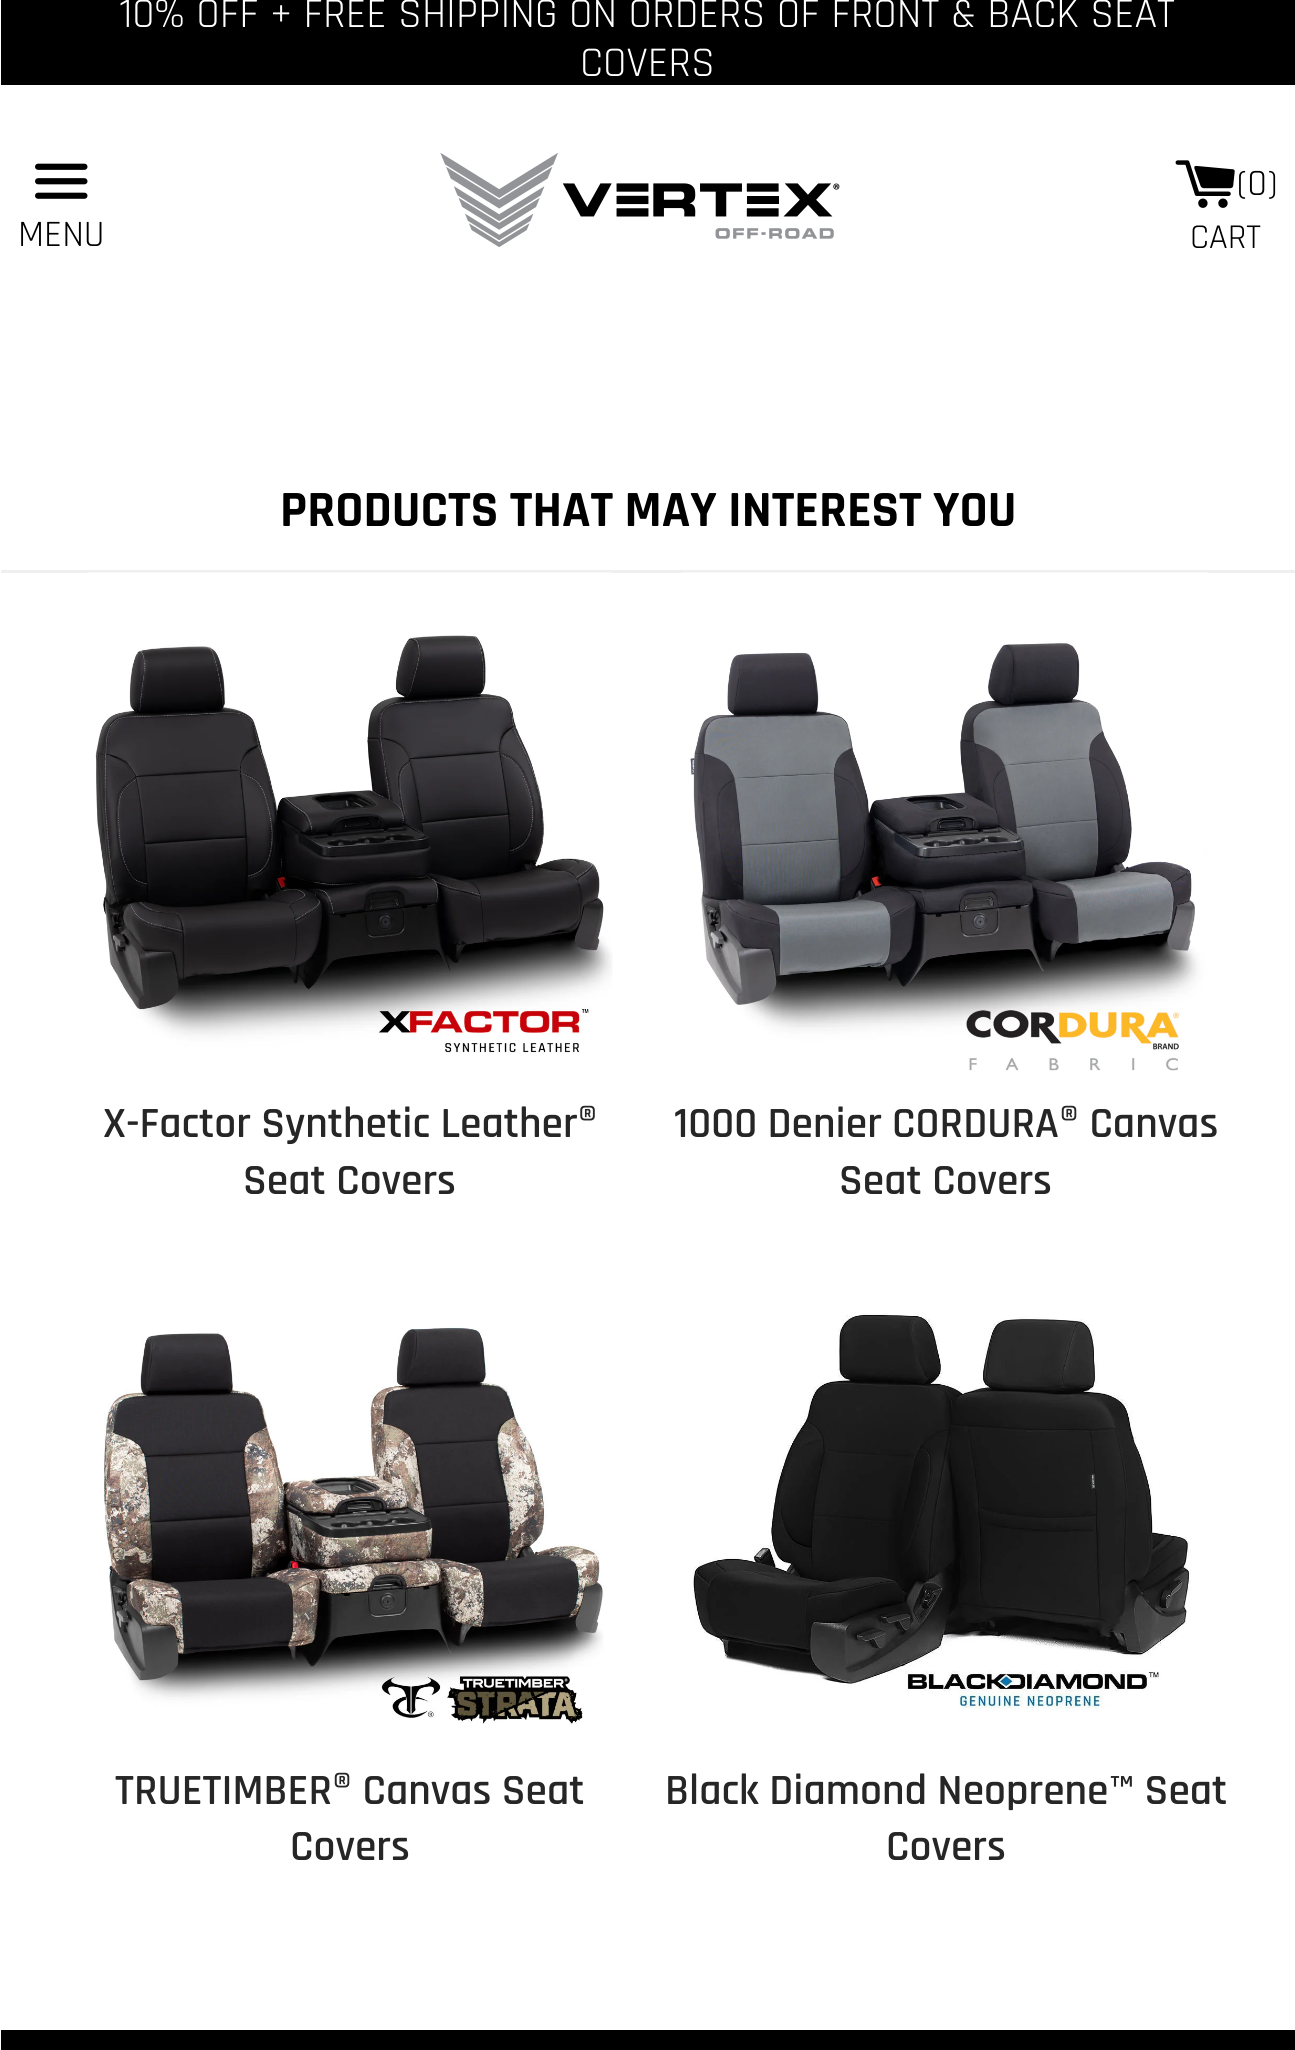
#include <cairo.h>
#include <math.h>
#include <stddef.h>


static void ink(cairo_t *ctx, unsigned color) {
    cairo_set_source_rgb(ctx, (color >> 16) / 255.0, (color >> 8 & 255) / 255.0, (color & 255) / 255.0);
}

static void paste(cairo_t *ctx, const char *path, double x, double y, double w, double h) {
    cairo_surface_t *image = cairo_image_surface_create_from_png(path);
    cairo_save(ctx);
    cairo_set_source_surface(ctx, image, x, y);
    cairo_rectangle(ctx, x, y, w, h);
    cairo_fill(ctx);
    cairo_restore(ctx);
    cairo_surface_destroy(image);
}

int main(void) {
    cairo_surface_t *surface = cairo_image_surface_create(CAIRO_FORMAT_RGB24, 1295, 2050);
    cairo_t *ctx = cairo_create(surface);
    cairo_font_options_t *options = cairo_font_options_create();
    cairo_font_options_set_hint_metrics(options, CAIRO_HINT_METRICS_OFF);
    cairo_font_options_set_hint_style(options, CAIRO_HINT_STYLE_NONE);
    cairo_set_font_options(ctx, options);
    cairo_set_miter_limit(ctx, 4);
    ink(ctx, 0xFFFFFF);
    cairo_paint(ctx);
    ink(ctx, 0x000000);
    cairo_rectangle(ctx, 1, 0, 1294, 85);
    cairo_fill(ctx);
    cairo_select_font_face(ctx, "Rajdhani", CAIRO_FONT_SLANT_NORMAL, CAIRO_FONT_WEIGHT_NORMAL);
    cairo_set_font_size(ctx, 42.5);
    ink(ctx, 0xFFFFFF);
    cairo_move_to(ctx, 119, 27);
    cairo_show_text(ctx, "10% OFF + FREE SHIPPING ON ORDERS OF FRONT & BACK SEAT");
    cairo_move_to(ctx, 580, 76);
    cairo_show_text(ctx, "COVERS");
    paste(ctx, "media/1.png", 35, 163, 53, 36);
    cairo_set_font_size(ctx, 37.5);
    ink(ctx, 0x000000);
    cairo_move_to(ctx, 18, 246);
    cairo_show_text(ctx, "MENU");
    paste(ctx, "media/2.png", 440, 153, 400, 94);
    paste(ctx, "media/3.png", 1175, 160, 60, 48);
    cairo_move_to(ctx, 1237, 195);
    cairo_show_text(ctx, "(0)");
    cairo_set_font_size(ctx, 35);
    cairo_move_to(ctx, 1190, 248);
    cairo_show_text(ctx, "CART");
    ink(ctx, 0xEFEFEF);
    cairo_rectangle(ctx, 0, 570, 1295, 3);
    cairo_fill(ctx);
    ink(ctx, 0xFFFFFF);
    cairo_rectangle(ctx, 0, 570, 1, 3);
    cairo_fill(ctx);
    cairo_select_font_face(ctx, "Rajdhani", CAIRO_FONT_SLANT_NORMAL, CAIRO_FONT_WEIGHT_BOLD);
    cairo_set_font_size(ctx, 51.25);
    ink(ctx, 0x000000);
    cairo_move_to(ctx, 280, 526);
    cairo_show_text(ctx, "PRODUCTS THAT MAY INTEREST YOU");
    paste(ctx, "media/4.png", 87, 572, 526, 481);
    cairo_select_font_face(ctx, "Rajdhani SemiBold", CAIRO_FONT_SLANT_NORMAL, CAIRO_FONT_WEIGHT_NORMAL);
    cairo_set_font_size(ctx, 43.5);
    ink(ctx, 0x262626);
    cairo_move_to(ctx, 103, 1137);
    cairo_show_text(ctx, "X-Factor Synthetic Leather®");
    cairo_move_to(ctx, 243, 1194);
    cairo_show_text(ctx, "Seat Covers");
    paste(ctx, "media/5.png", 682, 572, 526, 499);
    cairo_move_to(ctx, 674, 1137);
    cairo_show_text(ctx, "1000 Denier CORDURA® Canvas");
    cairo_move_to(ctx, 839, 1194);
    cairo_show_text(ctx, "Seat Covers");
    paste(ctx, "media/6.png", 104, 1327, 500, 397);
    cairo_move_to(ctx, 115, 1804);
    cairo_show_text(ctx, "TRUETIMBER® Canvas Seat");
    cairo_move_to(ctx, 290, 1860);
    cairo_show_text(ctx, "Covers");
    paste(ctx, "media/7.png", 692, 1313, 499, 396);
    cairo_move_to(ctx, 665, 1804);
    cairo_show_text(ctx, "Black Diamond Neoprene™ Seat");
    cairo_move_to(ctx, 886, 1860);
    cairo_show_text(ctx, "Covers");
    ink(ctx, 0x000000);
    cairo_rectangle(ctx, 1, 2030, 1294, 20);
    cairo_fill(ctx);
    cairo_surface_write_to_png(surface, "image.png");
    cairo_font_options_destroy(options);
    cairo_destroy(ctx);
    cairo_surface_destroy(surface);
    return 0;
}
